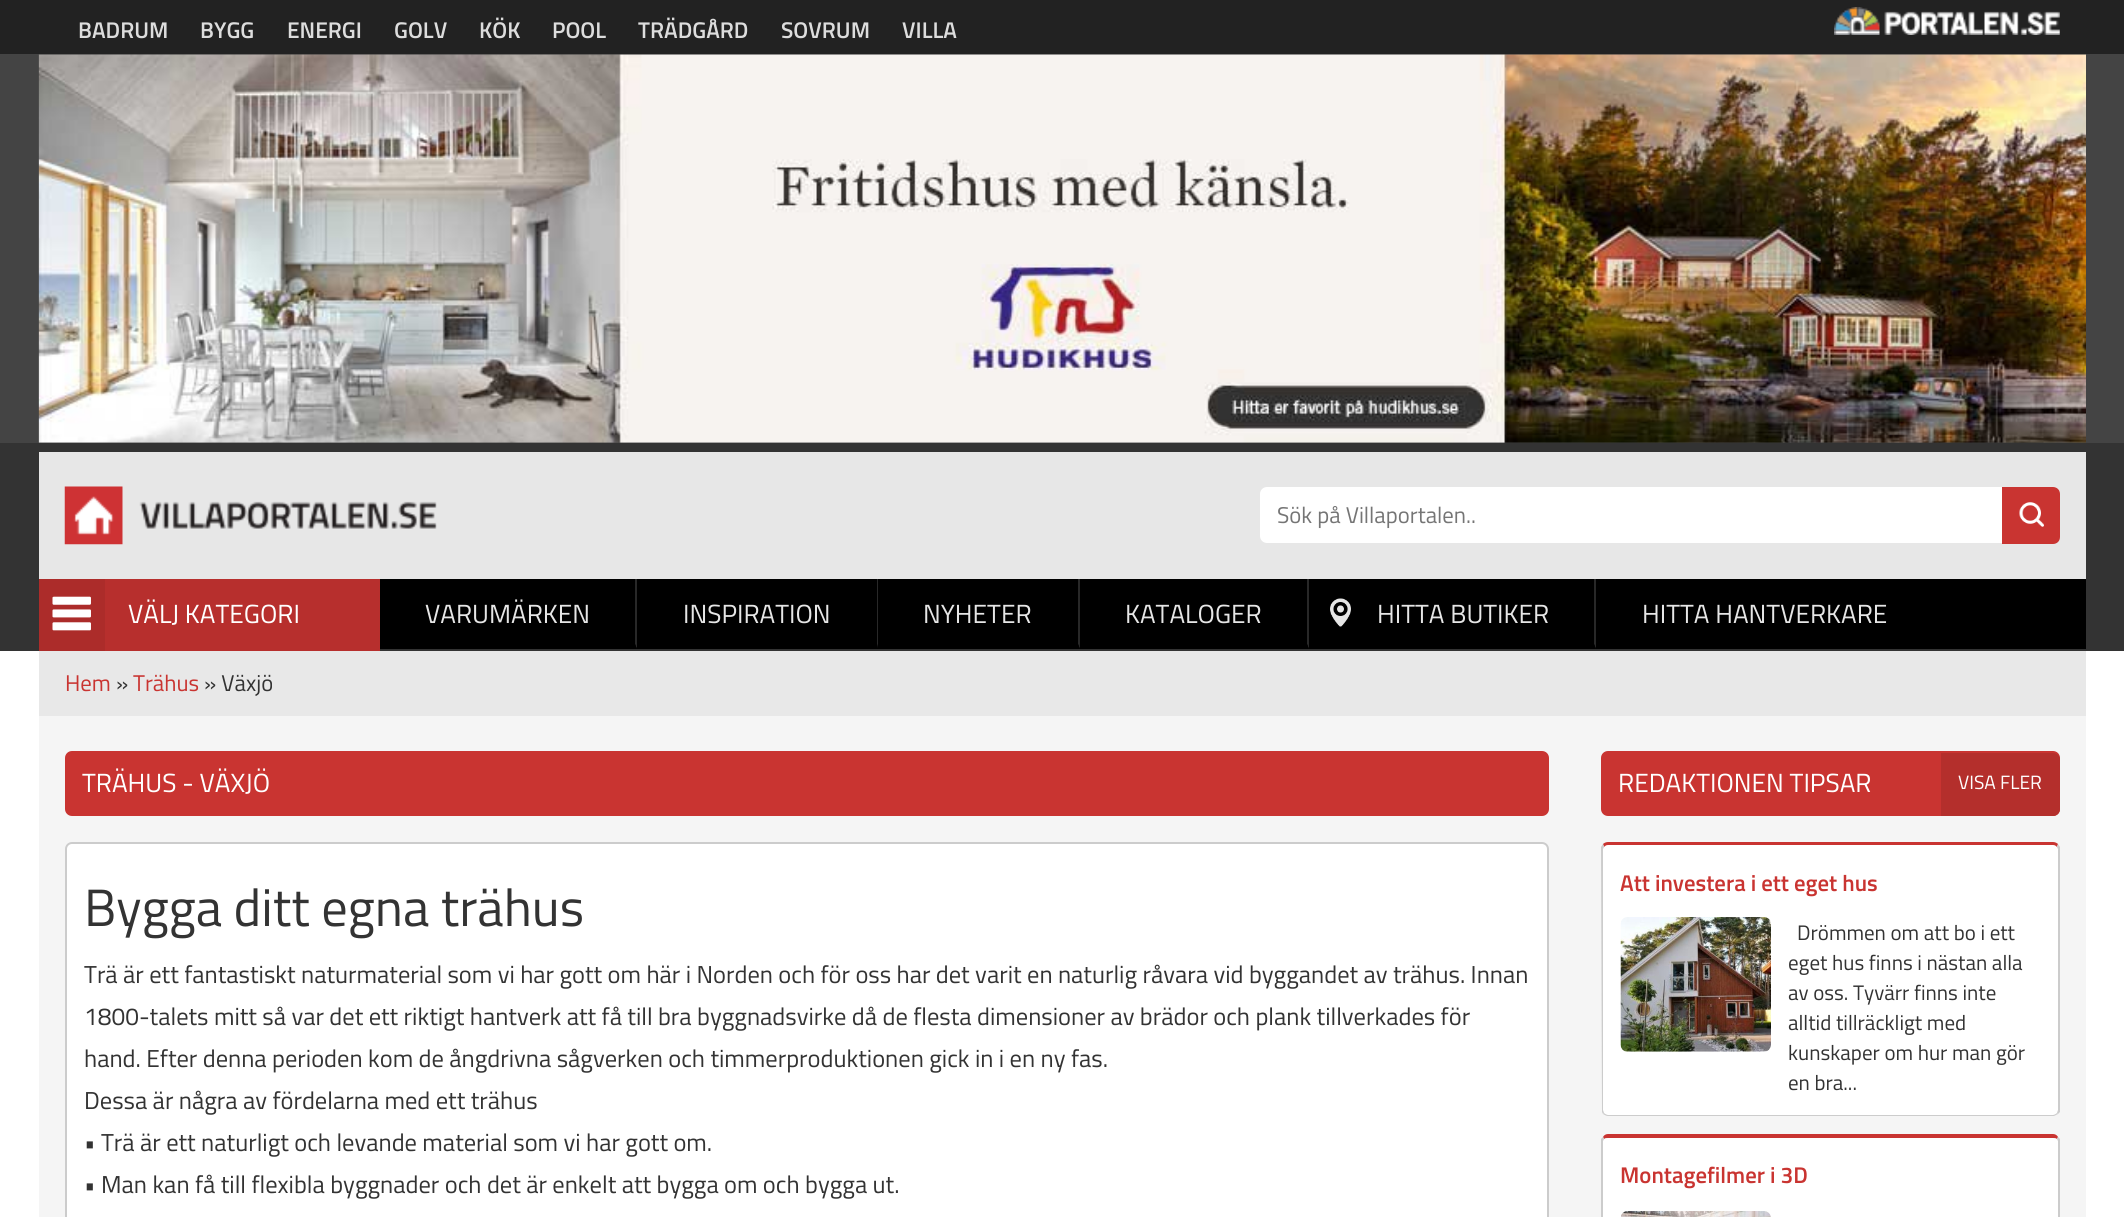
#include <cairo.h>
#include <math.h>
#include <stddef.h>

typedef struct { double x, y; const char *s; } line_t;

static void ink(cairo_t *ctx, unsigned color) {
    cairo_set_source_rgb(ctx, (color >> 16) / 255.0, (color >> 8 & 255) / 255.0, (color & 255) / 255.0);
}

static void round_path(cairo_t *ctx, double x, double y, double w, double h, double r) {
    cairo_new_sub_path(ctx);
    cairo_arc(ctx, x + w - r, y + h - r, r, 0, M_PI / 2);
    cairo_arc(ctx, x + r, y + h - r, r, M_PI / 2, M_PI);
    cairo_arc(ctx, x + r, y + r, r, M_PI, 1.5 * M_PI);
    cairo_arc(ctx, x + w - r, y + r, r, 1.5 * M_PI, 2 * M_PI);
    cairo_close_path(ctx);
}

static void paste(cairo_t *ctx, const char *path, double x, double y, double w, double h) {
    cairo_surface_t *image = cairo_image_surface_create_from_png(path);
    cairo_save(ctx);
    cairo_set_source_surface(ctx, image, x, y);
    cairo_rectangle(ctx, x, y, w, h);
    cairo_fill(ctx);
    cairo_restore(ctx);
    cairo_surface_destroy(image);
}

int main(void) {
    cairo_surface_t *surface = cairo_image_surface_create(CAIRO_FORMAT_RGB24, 2124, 1217);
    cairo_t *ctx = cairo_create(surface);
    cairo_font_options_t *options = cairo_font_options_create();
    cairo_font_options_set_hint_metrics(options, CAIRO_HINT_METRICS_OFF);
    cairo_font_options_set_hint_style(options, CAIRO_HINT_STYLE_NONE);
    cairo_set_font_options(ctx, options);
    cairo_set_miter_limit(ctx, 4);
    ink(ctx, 0xFFFFFF);
    cairo_paint(ctx);
    ink(ctx, 0x222222);
    cairo_rectangle(ctx, 0, 0, 2124, 54);
    cairo_fill(ctx);
    cairo_select_font_face(ctx, "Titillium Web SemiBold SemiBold", CAIRO_FONT_SLANT_NORMAL, CAIRO_FONT_WEIGHT_NORMAL);
    cairo_set_font_size(ctx, 22.75);
    ink(ctx, 0xDDDDDD);
    {
        static const line_t items[] = {
            {78, 38, "BADRUM"},
            {200, 38, "BYGG"},
            {287, 38, "ENERGI"},
            {394, 38, "GOLV"},
            {479, 38, "KÖK"},
            {552, 38, "POOL"},
            {638, 38, "TRÄDGÅRD"},
            {781, 38, "SOVRUM"},
            {902, 38, "VILLA"},
        };
        for (size_t i = 0; i < sizeof items / sizeof *items; i++) {
            cairo_move_to(ctx, items[i].x, items[i].y);
            cairo_show_text(ctx, items[i].s);
        }
    }
    paste(ctx, "media/1.png", 1834, 7, 226, 28);
    ink(ctx, 0x444444);
    cairo_rectangle(ctx, 0, 54, 2124, 389);
    cairo_fill(ctx);
    paste(ctx, "media/2.png", 38, 54, 2048, 389);
    ink(ctx, 0x333333);
    cairo_rectangle(ctx, 0, 443, 2124, 208);
    cairo_fill(ctx);
    ink(ctx, 0xE7E7E7);
    cairo_rectangle(ctx, 39, 452, 2047, 127);
    cairo_fill(ctx);
    paste(ctx, "media/3.png", 64, 486, 373, 59);
    ink(ctx, 0xFFFFFF);
    round_path(ctx, 1260, 487, 800, 56, 7);
    cairo_fill(ctx);
    cairo_save(ctx);
    cairo_rectangle(ctx, 1278, 497, 764, 35);
    cairo_clip(ctx);
    cairo_select_font_face(ctx, "Titillium Web", CAIRO_FONT_SLANT_NORMAL, CAIRO_FONT_WEIGHT_NORMAL);
    ink(ctx, 0x757575);
    cairo_move_to(ctx, 1277, 523);
    cairo_show_text(ctx, "Sök på Villaportalen..");
    cairo_restore(ctx);
    ink(ctx, 0xC93431);
    cairo_new_path(ctx);
    cairo_move_to(ctx, 2002, 487);
    cairo_line_to(ctx, 2053, 487);
    cairo_curve_to(ctx, 2057, 487, 2060, 490, 2060, 494);
    cairo_line_to(ctx, 2060, 537);
    cairo_curve_to(ctx, 2060, 541, 2057, 544, 2053, 544);
    cairo_line_to(ctx, 2002, 544);
    cairo_close_path(ctx);
    cairo_fill(ctx);
    paste(ctx, "media/4.png", 2019, 502, 25, 25);
    ink(ctx, 0xB72F2D);
    cairo_rectangle(ctx, 105, 579, 275, 72);
    cairo_fill(ctx);
    ink(ctx, 0xAC2C2A);
    cairo_rectangle(ctx, 39, 579, 66, 72);
    cairo_fill(ctx);
    paste(ctx, "media/5.png", 52, 596, 39, 35);
    cairo_select_font_face(ctx, "Titillium Web", CAIRO_FONT_SLANT_NORMAL, CAIRO_FONT_WEIGHT_NORMAL);
    cairo_set_font_size(ctx, 26.25);
    ink(ctx, 0xFFFFFF);
    cairo_move_to(ctx, 128, 623);
    cairo_show_text(ctx, "VÄLJ KATEGORI");
    ink(ctx, 0x000000);
    cairo_rectangle(ctx, 380, 579, 1706, 70);
    cairo_fill(ctx);
    ink(ctx, 0x282828);
    cairo_new_path(ctx);
    cairo_move_to(ctx, 637, 579);
    cairo_line_to(ctx, 637, 649);
    cairo_line_to(ctx, 635, 644);
    cairo_line_to(ctx, 635, 579);
    cairo_close_path(ctx);
    cairo_fill(ctx);
    ink(ctx, 0x000000);
    cairo_new_path(ctx);
    cairo_move_to(ctx, 637, 649);
    cairo_line_to(ctx, 380, 649);
    cairo_line_to(ctx, 380, 644);
    cairo_line_to(ctx, 635, 644);
    cairo_close_path(ctx);
    cairo_fill(ctx);
    ink(ctx, 0xE6E6E6);
    cairo_move_to(ctx, 425, 623);
    cairo_show_text(ctx, "VARUMÄRKEN");
    ink(ctx, 0x282828);
    cairo_new_path(ctx);
    cairo_move_to(ctx, 878, 579);
    cairo_line_to(ctx, 878, 649);
    cairo_line_to(ctx, 877, 644);
    cairo_line_to(ctx, 877, 579);
    cairo_close_path(ctx);
    cairo_fill(ctx);
    ink(ctx, 0x000000);
    cairo_new_path(ctx);
    cairo_move_to(ctx, 878, 649);
    cairo_line_to(ctx, 637, 649);
    cairo_line_to(ctx, 637, 644);
    cairo_line_to(ctx, 877, 644);
    cairo_close_path(ctx);
    cairo_fill(ctx);
    ink(ctx, 0xE6E6E6);
    cairo_move_to(ctx, 683, 623);
    cairo_show_text(ctx, "INSPIRATION");
    ink(ctx, 0x282828);
    cairo_new_path(ctx);
    cairo_move_to(ctx, 1080, 579);
    cairo_line_to(ctx, 1080, 649);
    cairo_line_to(ctx, 1078, 644);
    cairo_line_to(ctx, 1078, 579);
    cairo_close_path(ctx);
    cairo_fill(ctx);
    ink(ctx, 0x000000);
    cairo_new_path(ctx);
    cairo_move_to(ctx, 1080, 649);
    cairo_line_to(ctx, 878, 649);
    cairo_line_to(ctx, 878, 644);
    cairo_line_to(ctx, 1078, 644);
    cairo_close_path(ctx);
    cairo_fill(ctx);
    ink(ctx, 0xE6E6E6);
    cairo_move_to(ctx, 923, 623);
    cairo_show_text(ctx, "NYHETER");
    ink(ctx, 0x282828);
    cairo_new_path(ctx);
    cairo_move_to(ctx, 1309, 579);
    cairo_line_to(ctx, 1309, 649);
    cairo_line_to(ctx, 1307, 644);
    cairo_line_to(ctx, 1307, 579);
    cairo_close_path(ctx);
    cairo_fill(ctx);
    ink(ctx, 0x000000);
    cairo_new_path(ctx);
    cairo_move_to(ctx, 1309, 649);
    cairo_line_to(ctx, 1080, 649);
    cairo_line_to(ctx, 1080, 644);
    cairo_line_to(ctx, 1307, 644);
    cairo_close_path(ctx);
    cairo_fill(ctx);
    ink(ctx, 0xE6E6E6);
    cairo_move_to(ctx, 1125, 623);
    cairo_show_text(ctx, "KATALOGER");
    paste(ctx, "media/6.png", 1330, 598, 21, 29);
    ink(ctx, 0x282828);
    cairo_new_path(ctx);
    cairo_move_to(ctx, 1596, 579);
    cairo_line_to(ctx, 1596, 649);
    cairo_line_to(ctx, 1594, 644);
    cairo_line_to(ctx, 1594, 579);
    cairo_close_path(ctx);
    cairo_fill(ctx);
    ink(ctx, 0x000000);
    cairo_new_path(ctx);
    cairo_move_to(ctx, 1596, 649);
    cairo_line_to(ctx, 1309, 649);
    cairo_line_to(ctx, 1309, 644);
    cairo_line_to(ctx, 1594, 644);
    cairo_close_path(ctx);
    cairo_fill(ctx);
    ink(ctx, 0xE6E6E6);
    cairo_move_to(ctx, 1377, 623);
    cairo_show_text(ctx, "HITTA BUTIKER");
    cairo_move_to(ctx, 1642, 623);
    cairo_show_text(ctx, "HITTA HANTVERKARE");
    ink(ctx, 0xF5F5F5);
    cairo_rectangle(ctx, 39, 716, 2047, 501);
    cairo_fill(ctx);
    ink(ctx, 0xE8E8E8);
    cairo_rectangle(ctx, 39, 651, 2047, 65);
    cairo_fill(ctx);
    cairo_set_font_size(ctx, 22.75);
    ink(ctx, 0xC93431);
    cairo_move_to(ctx, 65, 691);
    cairo_show_text(ctx, "Hem");
    ink(ctx, 0x333333);
    cairo_move_to(ctx, 116, 691);
    cairo_show_text(ctx, "»");
    ink(ctx, 0xC93431);
    cairo_move_to(ctx, 133, 691);
    cairo_show_text(ctx, "Trähus");
    ink(ctx, 0x333333);
    cairo_move_to(ctx, 204, 691);
    cairo_show_text(ctx, "» Växjö");
    ink(ctx, 0xC93431);
    round_path(ctx, 65, 751, 1484, 65, 7);
    cairo_fill(ctx);
    cairo_set_font_size(ctx, 26.25);
    ink(ctx, 0xFFFFFF);
    cairo_move_to(ctx, 82, 792);
    cairo_show_text(ctx, "TRÄHUS - VÄXJÖ");
    round_path(ctx, 66, 843, 1482, 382, 6);
    cairo_fill_preserve(ctx);
    ink(ctx, 0xCCCCCC);
    cairo_stroke(ctx);
    cairo_set_font_size(ctx, 52.5);
    ink(ctx, 0x333333);
    cairo_move_to(ctx, 84, 926);
    cairo_show_text(ctx, "Bygga ditt egna trähus");
    cairo_set_font_size(ctx, 24.5);
    {
        static const line_t items[] = {
            {84, 983, "Trä är ett fantastiskt naturmaterial som vi har gott om här i Norden och för oss har det varit en naturlig råvara vid byggandet av trähus. Innan"},
            {84, 1025, "1800-talets mitt så var det ett riktigt hantverk att få till bra byggnadsvirke då de flesta dimensioner av brädor och plank tillverkades för"},
            {84, 1067, "hand. Efter denna perioden kom de ångdrivna sågverken och timmerproduktionen gick in i en ny fas."},
            {84, 1109, "Dessa är några av fördelarna med ett trähus"},
            {84, 1151, "• Trä är ett naturligt och levande material som vi har gott om."},
            {84, 1193, "• Man kan få till flexibla byggnader och det är enkelt att bygga om och bygga ut."},
        };
        for (size_t i = 0; i < sizeof items / sizeof *items; i++) {
            cairo_move_to(ctx, items[i].x, items[i].y);
            cairo_show_text(ctx, items[i].s);
        }
    }
    ink(ctx, 0xC93431);
    round_path(ctx, 1601, 751, 459, 65, 7);
    cairo_fill(ctx);
    cairo_set_font_size(ctx, 26.25);
    ink(ctx, 0xFFFFFF);
    cairo_move_to(ctx, 1618, 792);
    cairo_show_text(ctx, "REDAKTIONEN TIPSAR");
    ink(ctx, 0xB42F2C);
    cairo_new_path(ctx);
    cairo_move_to(ctx, 1941, 753);
    cairo_line_to(ctx, 2053, 753);
    cairo_curve_to(ctx, 2057, 753, 2060, 756, 2060, 760);
    cairo_line_to(ctx, 2060, 809);
    cairo_curve_to(ctx, 2060, 813, 2057, 816, 2053, 816);
    cairo_line_to(ctx, 1941, 816);
    cairo_close_path(ctx);
    cairo_fill(ctx);
    cairo_set_font_size(ctx, 19.25);
    ink(ctx, 0xFFFFFF);
    cairo_move_to(ctx, 1958, 789);
    cairo_show_text(ctx, "VISA FLER");
    cairo_new_path(ctx);
    cairo_move_to(ctx, 1608, 845);
    cairo_line_to(ctx, 2053, 845);
    cairo_curve_to(ctx, 2056, 845, 2058, 847, 2058, 849);
    cairo_line_to(ctx, 2058, 1110);
    cairo_curve_to(ctx, 2058, 1112, 2056, 1115, 2053, 1115);
    cairo_line_to(ctx, 1608, 1115);
    cairo_curve_to(ctx, 1605, 1115, 1603, 1112, 1603, 1110);
    cairo_line_to(ctx, 1603, 849);
    cairo_curve_to(ctx, 1603, 847, 1605, 845, 1608, 845);
    cairo_close_path(ctx);
    cairo_fill(ctx);
    ink(ctx, 0xC93431);
    cairo_new_path(ctx);
    cairo_move_to(ctx, 1608, 842);
    cairo_curve_to(ctx, 1606, 842, 1604, 843, 1603, 844);
    cairo_line_to(ctx, 1604, 847);
    cairo_curve_to(ctx, 1605, 846, 1606, 845, 1608, 845);
    cairo_line_to(ctx, 2053, 845);
    cairo_curve_to(ctx, 2055, 845, 2056, 846, 2057, 847);
    cairo_line_to(ctx, 2058, 844);
    cairo_curve_to(ctx, 2057, 843, 2055, 842, 2053, 842);
    cairo_close_path(ctx);
    cairo_fill(ctx);
    ink(ctx, 0xCCCCCC);
    cairo_new_path(ctx);
    cairo_move_to(ctx, 2060, 1112);
    cairo_line_to(ctx, 2058, 1114);
    cairo_line_to(ctx, 2057, 1113);
    cairo_line_to(ctx, 2058, 1110);
    cairo_line_to(ctx, 2058, 849);
    cairo_line_to(ctx, 2057, 847);
    cairo_line_to(ctx, 2058, 844);
    cairo_line_to(ctx, 2060, 847);
    cairo_close_path(ctx);
    cairo_fill(ctx);
    cairo_new_path(ctx);
    cairo_move_to(ctx, 2058, 1114);
    cairo_line_to(ctx, 2054, 1116);
    cairo_line_to(ctx, 1608, 1116);
    cairo_curve_to(ctx, 1606, 1116, 1605, 1115, 1603, 1114);
    cairo_line_to(ctx, 1604, 1113);
    cairo_curve_to(ctx, 1605, 1114, 1607, 1115, 1608, 1115);
    cairo_line_to(ctx, 2053, 1115);
    cairo_curve_to(ctx, 2054, 1115, 2056, 1114, 2057, 1113);
    cairo_close_path(ctx);
    cairo_fill(ctx);
    cairo_new_path(ctx);
    cairo_move_to(ctx, 1601, 847);
    cairo_line_to(ctx, 1603, 844);
    cairo_line_to(ctx, 1604, 847);
    cairo_line_to(ctx, 1603, 849);
    cairo_line_to(ctx, 1603, 1110);
    cairo_line_to(ctx, 1604, 1113);
    cairo_line_to(ctx, 1603, 1114);
    cairo_line_to(ctx, 1602, 1112);
    cairo_close_path(ctx);
    cairo_fill(ctx);
    cairo_select_font_face(ctx, "Titillium Web SemiBold SemiBold", CAIRO_FONT_SLANT_NORMAL, CAIRO_FONT_WEIGHT_NORMAL);
    cairo_set_font_size(ctx, 22.75);
    ink(ctx, 0xC93431);
    cairo_move_to(ctx, 1620, 891);
    cairo_show_text(ctx, "Att investera i ett eget hus");
    paste(ctx, "media/7.png", 1620, 917, 151, 135);
    cairo_select_font_face(ctx, "Titillium Web", CAIRO_FONT_SLANT_NORMAL, CAIRO_FONT_WEIGHT_NORMAL);
    cairo_set_font_size(ctx, 21);
    ink(ctx, 0x333333);
    {
        static const line_t items[] = {
            {1797, 940, "Drömmen om att bo i ett"},
            {1788, 970, "eget hus finns i nästan alla"},
            {1788, 1000, "av oss. Tyvärr finns inte"},
            {1788, 1030, "alltid tillräckligt med"},
            {1788, 1060, "kunskaper om hur man gör"},
            {1788, 1090, "en bra..."},
        };
        for (size_t i = 0; i < sizeof items / sizeof *items; i++) {
            cairo_move_to(ctx, items[i].x, items[i].y);
            cairo_show_text(ctx, items[i].s);
        }
    }
    ink(ctx, 0xFFFFFF);
    cairo_new_path(ctx);
    cairo_move_to(ctx, 1608, 1138);
    cairo_line_to(ctx, 2053, 1138);
    cairo_curve_to(ctx, 2056, 1138, 2058, 1139, 2058, 1141);
    cairo_line_to(ctx, 2058, 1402);
    cairo_curve_to(ctx, 2058, 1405, 2056, 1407, 2053, 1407);
    cairo_line_to(ctx, 1608, 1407);
    cairo_curve_to(ctx, 1605, 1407, 1603, 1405, 1603, 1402);
    cairo_line_to(ctx, 1603, 1141);
    cairo_curve_to(ctx, 1603, 1139, 1605, 1138, 1608, 1138);
    cairo_close_path(ctx);
    cairo_fill(ctx);
    ink(ctx, 0xC93431);
    cairo_new_path(ctx);
    cairo_move_to(ctx, 1608, 1134);
    cairo_curve_to(ctx, 1606, 1134, 1604, 1135, 1603, 1137);
    cairo_line_to(ctx, 1604, 1139);
    cairo_curve_to(ctx, 1605, 1138, 1606, 1138, 1608, 1138);
    cairo_line_to(ctx, 2053, 1138);
    cairo_curve_to(ctx, 2055, 1138, 2056, 1138, 2057, 1139);
    cairo_line_to(ctx, 2058, 1137);
    cairo_curve_to(ctx, 2057, 1135, 2055, 1134, 2053, 1134);
    cairo_close_path(ctx);
    cairo_fill(ctx);
    ink(ctx, 0xCCCCCC);
    cairo_new_path(ctx);
    cairo_move_to(ctx, 2060, 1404);
    cairo_line_to(ctx, 2058, 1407);
    cairo_line_to(ctx, 2057, 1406);
    cairo_curve_to(ctx, 2058, 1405, 2058, 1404, 2058, 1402);
    cairo_line_to(ctx, 2058, 1141);
    cairo_line_to(ctx, 2057, 1139);
    cairo_line_to(ctx, 2058, 1137);
    cairo_line_to(ctx, 2060, 1139);
    cairo_close_path(ctx);
    cairo_fill(ctx);
    cairo_new_path(ctx);
    cairo_move_to(ctx, 1601, 1139);
    cairo_line_to(ctx, 1603, 1137);
    cairo_line_to(ctx, 1604, 1139);
    cairo_line_to(ctx, 1603, 1141);
    cairo_line_to(ctx, 1603, 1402);
    cairo_curve_to(ctx, 1603, 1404, 1604, 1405, 1604, 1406);
    cairo_line_to(ctx, 1603, 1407);
    cairo_line_to(ctx, 1601, 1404);
    cairo_close_path(ctx);
    cairo_fill(ctx);
    cairo_select_font_face(ctx, "Titillium Web SemiBold SemiBold", CAIRO_FONT_SLANT_NORMAL, CAIRO_FONT_WEIGHT_NORMAL);
    cairo_set_font_size(ctx, 22.75);
    ink(ctx, 0xC93431);
    cairo_move_to(ctx, 1620, 1183);
    cairo_show_text(ctx, "Montagefilmer i 3D");
    paste(ctx, "media/8.png", 1621, 1211, 150, 6);
    cairo_surface_write_to_png(surface, "image.png");
    cairo_font_options_destroy(options);
    cairo_destroy(ctx);
    cairo_surface_destroy(surface);
    return 0;
}
